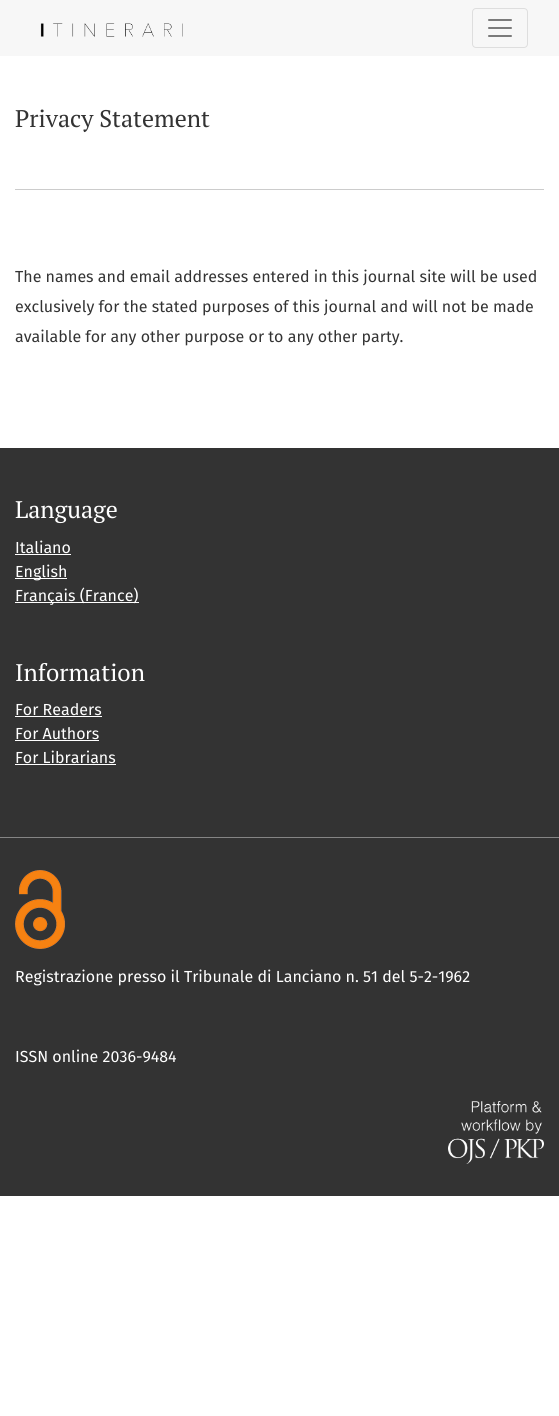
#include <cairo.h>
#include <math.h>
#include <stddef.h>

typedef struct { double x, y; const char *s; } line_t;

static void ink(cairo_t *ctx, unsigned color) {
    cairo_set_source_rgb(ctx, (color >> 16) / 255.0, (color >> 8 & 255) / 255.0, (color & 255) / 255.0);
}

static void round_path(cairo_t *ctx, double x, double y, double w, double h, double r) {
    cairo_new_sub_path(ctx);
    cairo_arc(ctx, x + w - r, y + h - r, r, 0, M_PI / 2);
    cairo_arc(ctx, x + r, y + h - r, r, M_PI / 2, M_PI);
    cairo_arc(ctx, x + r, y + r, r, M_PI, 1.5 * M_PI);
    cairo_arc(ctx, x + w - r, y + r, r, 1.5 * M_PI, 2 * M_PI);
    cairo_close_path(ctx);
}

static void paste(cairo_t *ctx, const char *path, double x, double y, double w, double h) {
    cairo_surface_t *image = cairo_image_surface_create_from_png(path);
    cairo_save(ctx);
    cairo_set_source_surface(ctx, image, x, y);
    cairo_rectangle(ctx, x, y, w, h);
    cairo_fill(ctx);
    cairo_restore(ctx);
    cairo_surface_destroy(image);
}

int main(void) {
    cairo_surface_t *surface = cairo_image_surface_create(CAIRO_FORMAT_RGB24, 559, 1416);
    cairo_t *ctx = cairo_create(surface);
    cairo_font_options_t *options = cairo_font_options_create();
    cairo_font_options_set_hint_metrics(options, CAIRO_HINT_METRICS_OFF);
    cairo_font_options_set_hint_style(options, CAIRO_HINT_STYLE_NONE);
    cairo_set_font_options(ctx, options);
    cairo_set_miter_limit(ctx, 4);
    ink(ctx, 0xFFFFFF);
    cairo_paint(ctx);
    ink(ctx, 0xF7F7F7);
    cairo_rectangle(ctx, 0, 0, 559, 56);
    cairo_fill(ctx);
    paste(ctx, "media/1.png", 40, 23, 143, 14);
    round_path(ctx, 472.5, 8.5, 55, 39, 3.5);
    ink(ctx, 0xDEDEDE);
    cairo_set_line_width(ctx, 1);
    cairo_stroke(ctx);
    paste(ctx, "media/2.png", 488, 19, 24, 18);
    cairo_select_font_face(ctx, "PT Serif", CAIRO_FONT_SLANT_NORMAL, CAIRO_FONT_WEIGHT_NORMAL);
    cairo_set_font_size(ctx, 24);
    ink(ctx, 0x333333);
    cairo_move_to(ctx, 15, 127);
    cairo_show_text(ctx, "Privacy Statement");
    ink(ctx, 0xCCCCCC);
    cairo_rectangle(ctx, 15, 189, 529, 1);
    cairo_fill(ctx);
    cairo_select_font_face(ctx, "Fira Sans", CAIRO_FONT_SLANT_NORMAL, CAIRO_FONT_WEIGHT_NORMAL);
    cairo_set_font_size(ctx, 16);
    ink(ctx, 0x333333);
    {
        static const line_t items[] = {
            {15, 282, "The names and email addresses entered in this journal site will be used"},
            {15, 312, "exclusively for the stated purposes of this journal and will not be made"},
            {15, 342, "available for any other purpose or to any other party."},
        };
        for (size_t i = 0; i < sizeof items / sizeof *items; i++) {
            cairo_move_to(ctx, items[i].x, items[i].y);
            cairo_show_text(ctx, items[i].s);
        }
    }
    cairo_rectangle(ctx, 0, 448, 559, 748);
    cairo_fill(ctx);
    ink(ctx, 0x858585);
    cairo_rectangle(ctx, 0, 837, 559, 1);
    cairo_fill(ctx);
    cairo_select_font_face(ctx, "PT Serif", CAIRO_FONT_SLANT_NORMAL, CAIRO_FONT_WEIGHT_NORMAL);
    cairo_set_font_size(ctx, 24);
    ink(ctx, 0xFFFFFF);
    cairo_move_to(ctx, 15, 518);
    cairo_show_text(ctx, "Language");
    cairo_select_font_face(ctx, "Fira Sans", CAIRO_FONT_SLANT_NORMAL, CAIRO_FONT_WEIGHT_NORMAL);
    cairo_set_font_size(ctx, 16);
    cairo_move_to(ctx, 15, 553);
    cairo_show_text(ctx, "Italiano");
    cairo_rectangle(ctx, 15, 554, 56, 1);
    cairo_fill(ctx);
    cairo_rectangle(ctx, 15, 578, 52, 1);
    cairo_fill(ctx);
    cairo_move_to(ctx, 15, 577);
    cairo_show_text(ctx, "English");
    cairo_rectangle(ctx, 15, 602, 124, 1);
    cairo_fill(ctx);
    cairo_move_to(ctx, 15, 601);
    cairo_show_text(ctx, "Français (France)");
    cairo_select_font_face(ctx, "PT Serif", CAIRO_FONT_SLANT_NORMAL, CAIRO_FONT_WEIGHT_NORMAL);
    cairo_set_font_size(ctx, 24);
    cairo_move_to(ctx, 15, 681);
    cairo_show_text(ctx, "Information");
    cairo_select_font_face(ctx, "Fira Sans", CAIRO_FONT_SLANT_NORMAL, CAIRO_FONT_WEIGHT_NORMAL);
    cairo_set_font_size(ctx, 16);
    cairo_move_to(ctx, 15, 715);
    cairo_show_text(ctx, "For Readers");
    cairo_rectangle(ctx, 15, 716, 87, 1);
    cairo_fill(ctx);
    cairo_move_to(ctx, 15, 739);
    cairo_show_text(ctx, "For Authors");
    cairo_rectangle(ctx, 15, 740, 84, 1);
    cairo_fill(ctx);
    cairo_move_to(ctx, 15, 763);
    cairo_show_text(ctx, "For Librarians");
    cairo_rectangle(ctx, 15, 764, 101, 1);
    cairo_fill(ctx);
    paste(ctx, "media/3.png", 15, 870, 50, 79);
    cairo_move_to(ctx, 15, 982);
    cairo_show_text(ctx, "Registrazione presso il Tribunale di Lanciano n. 51 del 5-2-1962");
    cairo_move_to(ctx, 15, 1062);
    cairo_show_text(ctx, "ISSN online 2036-9484");
    paste(ctx, "media/4.png", 448, 1101, 96, 63);
    cairo_surface_write_to_png(surface, "image.png");
    cairo_font_options_destroy(options);
    cairo_destroy(ctx);
    cairo_surface_destroy(surface);
    return 0;
}
